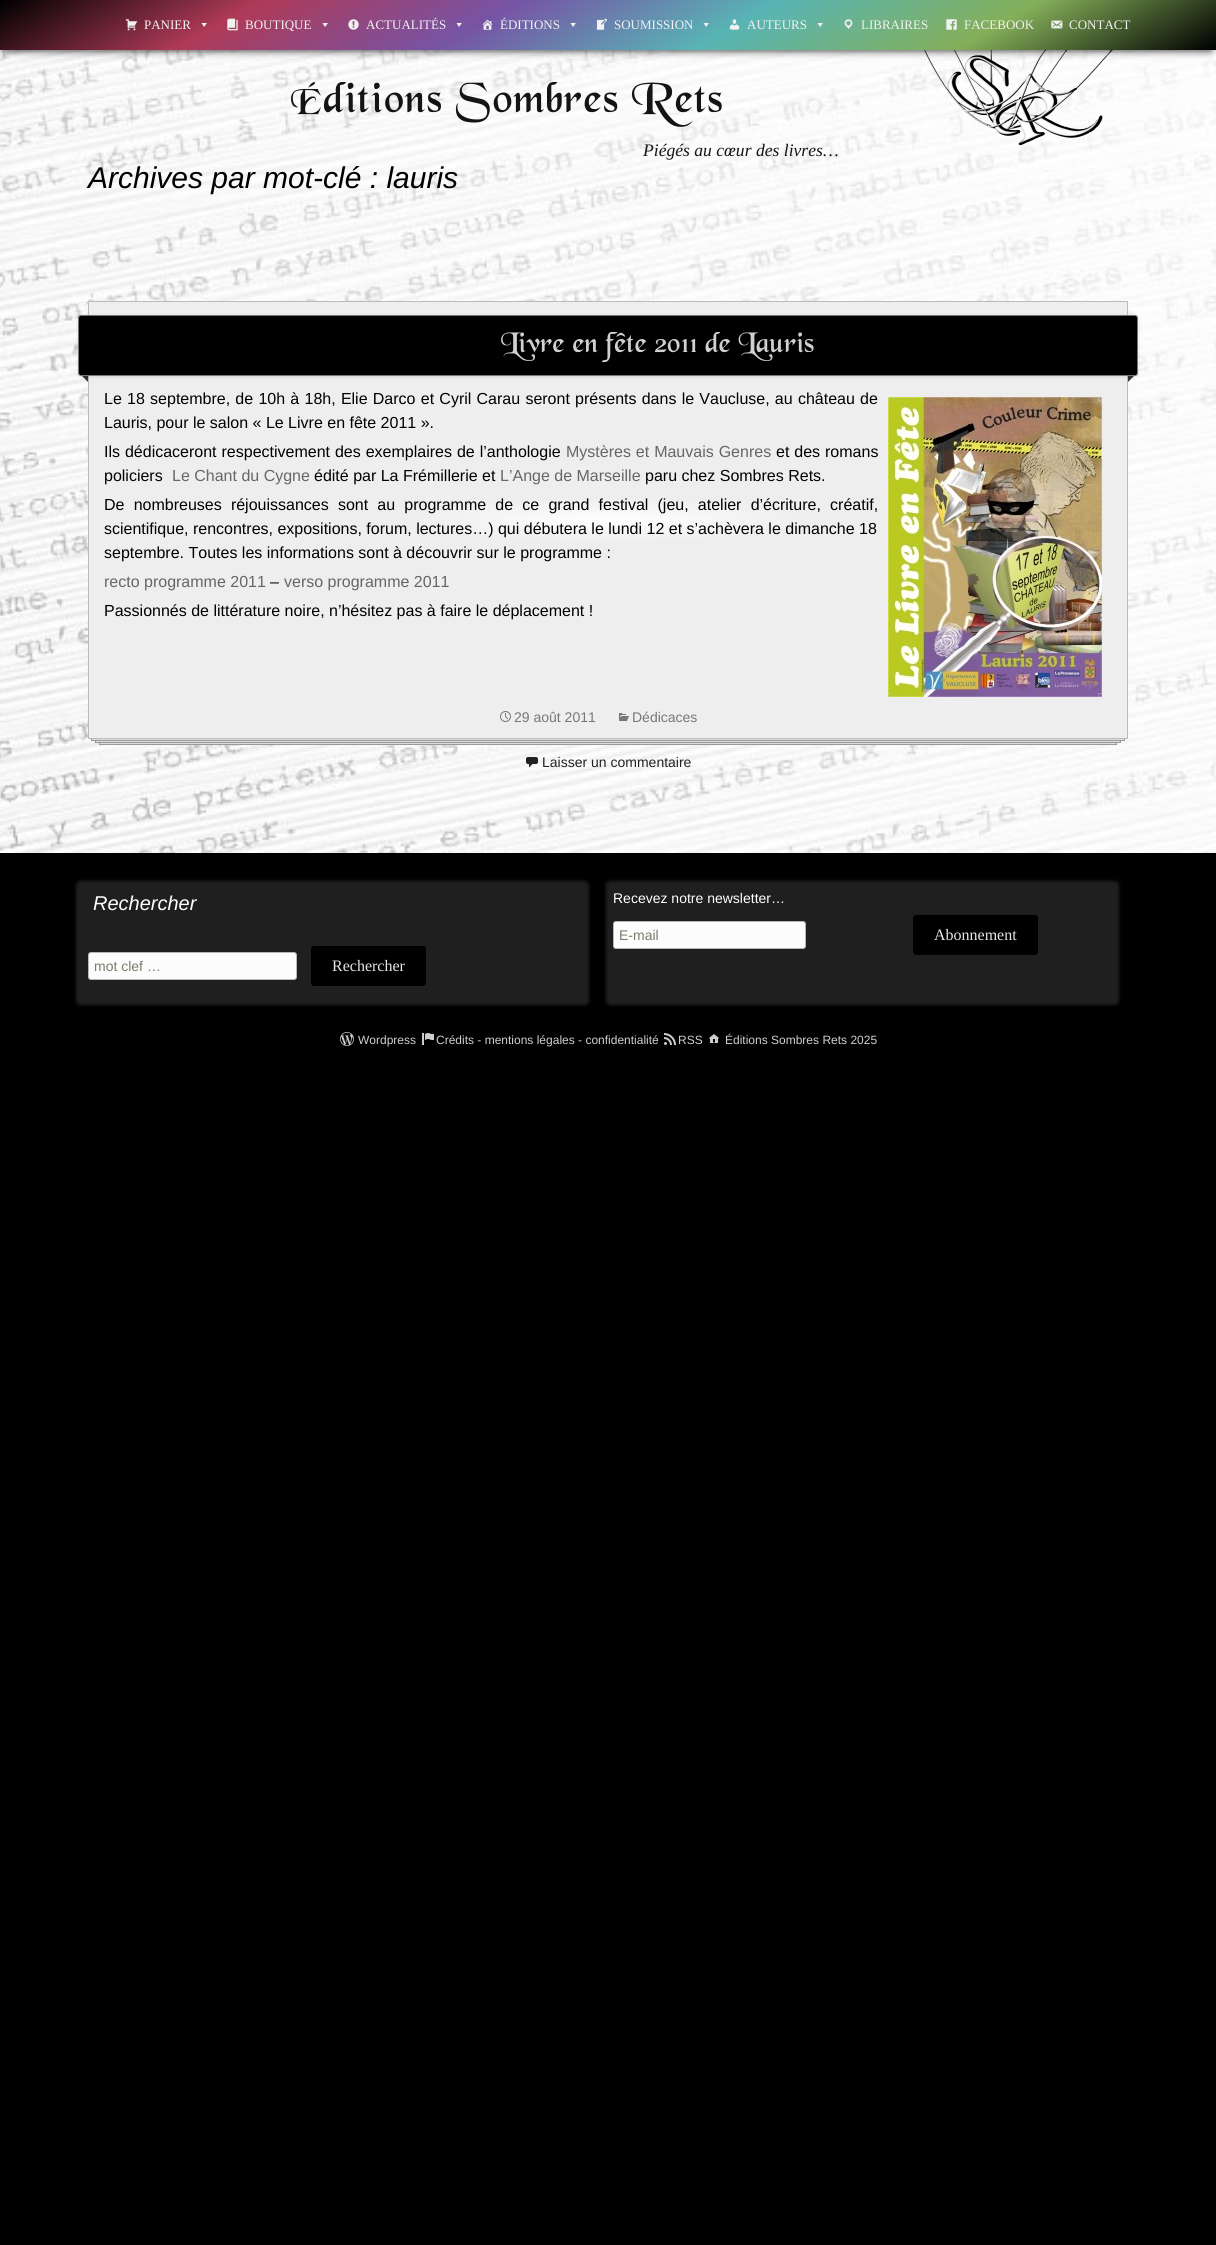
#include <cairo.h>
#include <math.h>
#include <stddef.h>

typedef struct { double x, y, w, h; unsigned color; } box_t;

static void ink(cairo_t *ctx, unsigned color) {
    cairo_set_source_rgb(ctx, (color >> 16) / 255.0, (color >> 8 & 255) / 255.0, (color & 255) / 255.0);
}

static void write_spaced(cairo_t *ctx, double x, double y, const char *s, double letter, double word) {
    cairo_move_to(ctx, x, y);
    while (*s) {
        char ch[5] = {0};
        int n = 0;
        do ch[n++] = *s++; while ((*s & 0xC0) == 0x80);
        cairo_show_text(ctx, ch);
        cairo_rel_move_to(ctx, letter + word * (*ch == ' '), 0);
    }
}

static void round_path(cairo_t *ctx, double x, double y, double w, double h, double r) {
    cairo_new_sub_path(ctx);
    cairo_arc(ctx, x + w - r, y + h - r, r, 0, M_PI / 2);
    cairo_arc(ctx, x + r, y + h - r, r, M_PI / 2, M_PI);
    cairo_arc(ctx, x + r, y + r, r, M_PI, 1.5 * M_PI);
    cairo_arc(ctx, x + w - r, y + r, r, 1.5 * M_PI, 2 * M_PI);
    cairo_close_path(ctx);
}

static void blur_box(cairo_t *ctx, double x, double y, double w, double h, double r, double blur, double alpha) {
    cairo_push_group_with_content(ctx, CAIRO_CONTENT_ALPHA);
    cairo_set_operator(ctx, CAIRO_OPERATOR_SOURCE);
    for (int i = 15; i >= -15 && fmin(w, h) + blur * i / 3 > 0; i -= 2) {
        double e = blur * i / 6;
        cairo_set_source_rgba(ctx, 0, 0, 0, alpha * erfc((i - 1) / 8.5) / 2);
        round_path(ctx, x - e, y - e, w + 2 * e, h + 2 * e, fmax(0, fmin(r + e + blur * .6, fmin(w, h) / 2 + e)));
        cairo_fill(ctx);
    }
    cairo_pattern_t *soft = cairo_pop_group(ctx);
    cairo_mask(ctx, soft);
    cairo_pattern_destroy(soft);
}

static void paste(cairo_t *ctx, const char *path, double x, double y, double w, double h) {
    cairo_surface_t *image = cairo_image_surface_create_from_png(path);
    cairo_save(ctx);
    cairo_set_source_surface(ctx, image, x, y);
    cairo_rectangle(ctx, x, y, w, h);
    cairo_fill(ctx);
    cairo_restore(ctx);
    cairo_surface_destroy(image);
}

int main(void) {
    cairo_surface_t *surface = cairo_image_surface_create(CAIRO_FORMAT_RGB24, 1216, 2245);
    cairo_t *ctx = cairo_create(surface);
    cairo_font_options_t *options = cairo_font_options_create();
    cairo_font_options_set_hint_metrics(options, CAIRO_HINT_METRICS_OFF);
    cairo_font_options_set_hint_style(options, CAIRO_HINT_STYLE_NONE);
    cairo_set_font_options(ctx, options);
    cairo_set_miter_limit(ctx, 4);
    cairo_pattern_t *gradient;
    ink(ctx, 0x000000);
    cairo_paint(ctx);
    paste(ctx, "media/1.png", 0, 50, 1216, 803);
    cairo_select_font_face(ctx, "Liberation Sans", CAIRO_FONT_SLANT_ITALIC, CAIRO_FONT_WEIGHT_NORMAL);
    cairo_set_font_size(ctx, 30);
    ink(ctx, 0x000000);
    cairo_move_to(ctx, 88, 188);
    cairo_show_text(ctx, "Archives par mot-clé : lauris");
    ink(ctx, 0xF5F5F5);
    cairo_rectangle(ctx, 356, 165, 4, 1);
    cairo_fill(ctx);
    paste(ctx, "media/11.png", 923, 50, 190, 96);
    ink(ctx, 0x000000);
    blur_box(ctx, 5, 11, 1206, 40, 0, 4, 0.75);
    gradient = cairo_pattern_create_linear(771, 307, 445, -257);
    cairo_pattern_add_color_stop_rgba(gradient, 0, 0, 0, 0, 1);
    cairo_pattern_add_color_stop_rgba(gradient, 0.2, 0.518, 0.686, 0.349, 1);
    cairo_pattern_add_color_stop_rgba(gradient, 0.4, 0.345, 0.71, 0.71, 1);
    cairo_pattern_add_color_stop_rgba(gradient, 0.6, 0.463, 0.329, 0.647, 1);
    cairo_pattern_add_color_stop_rgba(gradient, 0.8, 0.686, 0.227, 0.341, 1);
    cairo_pattern_add_color_stop_rgba(gradient, 1, 0, 0, 0, 1);
    cairo_set_source(ctx, gradient);
    cairo_pattern_destroy(gradient);
    cairo_rectangle(ctx, 0, 0, 1216, 50);
    cairo_fill(ctx);
    paste(ctx, "media/2.png", 125, 19, 13, 12);
    cairo_select_font_face(ctx, "Liberation Serif", CAIRO_FONT_SLANT_NORMAL, CAIRO_FONT_WEIGHT_NORMAL);
    cairo_set_font_size(ctx, 13);
    ink(ctx, 0xF1F1F1);
    cairo_move_to(ctx, 144, 29);
    cairo_show_text(ctx, "PANIER");
    cairo_new_path(ctx);
    cairo_move_to(ctx, 207, 23);
    cairo_line_to(ctx, 204, 27);
    cairo_line_to(ctx, 201.5, 23);
    cairo_close_path(ctx);
    cairo_fill(ctx);
    paste(ctx, "media/3.png", 227, 18, 11, 13);
    cairo_move_to(ctx, 245, 29);
    cairo_show_text(ctx, "BOUTIQUE");
    cairo_new_path(ctx);
    cairo_move_to(ctx, 328, 23);
    cairo_line_to(ctx, 325, 27);
    cairo_line_to(ctx, 322.5, 23);
    cairo_close_path(ctx);
    cairo_fill(ctx);
    paste(ctx, "media/4.png", 348, 19, 11, 11);
    cairo_move_to(ctx, 366, 29);
    cairo_show_text(ctx, "ACTUALITÉS");
    cairo_new_path(ctx);
    cairo_move_to(ctx, 462, 23);
    cairo_line_to(ctx, 459, 27);
    cairo_line_to(ctx, 456.5, 23);
    cairo_close_path(ctx);
    cairo_fill(ctx);
    paste(ctx, "media/5.png", 482, 19, 11, 11);
    cairo_move_to(ctx, 500, 29);
    cairo_show_text(ctx, "ÉDITIONS");
    cairo_new_path(ctx);
    cairo_move_to(ctx, 576, 23);
    cairo_line_to(ctx, 573, 27);
    cairo_line_to(ctx, 570.5, 23);
    cairo_close_path(ctx);
    cairo_fill(ctx);
    paste(ctx, "media/6.png", 596, 18, 11, 12);
    cairo_move_to(ctx, 614, 29);
    cairo_show_text(ctx, "SOUMISSION");
    cairo_new_path(ctx);
    cairo_move_to(ctx, 709, 23);
    cairo_line_to(ctx, 706, 27);
    cairo_line_to(ctx, 703.5, 23);
    cairo_close_path(ctx);
    cairo_fill(ctx);
    paste(ctx, "media/7.png", 729, 19, 11, 11);
    cairo_move_to(ctx, 747, 29);
    cairo_show_text(ctx, "AUTEURS");
    cairo_new_path(ctx);
    cairo_move_to(ctx, 823, 23);
    cairo_line_to(ctx, 820, 27);
    cairo_line_to(ctx, 817.5, 23);
    cairo_close_path(ctx);
    cairo_fill(ctx);
    paste(ctx, "media/8.png", 844, 19, 9, 11);
    cairo_move_to(ctx, 861, 29);
    cairo_show_text(ctx, "LIBRAIRES");
    paste(ctx, "media/9.png", 946, 19, 11, 11);
    cairo_move_to(ctx, 964, 29);
    cairo_show_text(ctx, "FACEBOOK");
    paste(ctx, "media/10.png", 1051, 20, 12, 9);
    cairo_move_to(ctx, 1069, 29);
    cairo_show_text(ctx, "CONTACT");
    cairo_select_font_face(ctx, "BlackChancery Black", CAIRO_FONT_SLANT_NORMAL, CAIRO_FONT_WEIGHT_NORMAL);
    cairo_set_font_size(ctx, 45);
    ink(ctx, 0x141412);
    write_spaced(ctx, 291, 112, "Éditions Sombres Rets", 1.3, 0);
    cairo_select_font_face(ctx, "Liberation Serif", CAIRO_FONT_SLANT_ITALIC, CAIRO_FONT_WEIGHT_NORMAL);
    cairo_set_font_size(ctx, 17.6);
    cairo_move_to(ctx, 643, 156);
    cairo_show_text(ctx, "Piégés au cœur des livres…");
    ink(ctx, 0x333333);
    cairo_new_path(ctx);
    cairo_move_to(ctx, 79, 373);
    cairo_line_to(ctx, 99, 373);
    cairo_line_to(ctx, 89, 383);
    cairo_close_path(ctx);
    cairo_fill(ctx);
    cairo_new_path(ctx);
    cairo_move_to(ctx, 1117, 373);
    cairo_line_to(ctx, 1137, 373);
    cairo_line_to(ctx, 1127, 383);
    cairo_close_path(ctx);
    cairo_fill(ctx);
    gradient = cairo_pattern_create_radial(0, 0, 0, 0, 0, 1);
    cairo_pattern_set_matrix(gradient, &(cairo_matrix_t){1.0 / 208, 0, 0, 1.0 / 22, -1.0 * 608 / 208, -1.0 * 520 / 22});
    cairo_pattern_add_color_stop_rgba(gradient, 0, 1, 1, 1, 1);
    cairo_pattern_add_color_stop_rgba(gradient, 1, 0.933, 0.933, 0.933, 1);
    cairo_set_source(ctx, gradient);
    cairo_pattern_destroy(gradient);
    cairo_rectangle(ctx, 89, 302, 1038, 436);
    cairo_fill(ctx);
    cairo_rectangle(ctx, 88.5, 301.5, 1039, 437);
    ink(ctx, 0xBBBBBB);
    cairo_set_line_width(ctx, 1);
    cairo_stroke(ctx);
    ink(ctx, 0x000000);
    blur_box(ctx, 78, 316, 1060, 61, 3, 1.5, 0.1);
    ink(ctx, 0x000000);
    round_path(ctx, 78.5, 315.5, 1059, 60, 2.5);
    cairo_fill_preserve(ctx);
    ink(ctx, 0x777777);
    cairo_stroke(ctx);
    cairo_select_font_face(ctx, "BlackChancery Black", CAIRO_FONT_SLANT_NORMAL, CAIRO_FONT_WEIGHT_NORMAL);
    cairo_set_font_size(ctx, 30);
    ink(ctx, 0xD0D0D0);
    cairo_move_to(ctx, 501, 352);
    cairo_show_text(ctx, "Livre en fête 2011 de Lauris");
    {
        static const box_t items[] = {
            {99, 743, 1018, 2, 0x999999},
            {100, 743, 1016, 1, 0xDDDDDD},
            {95, 741, 1026, 2, 0x999999},
            {96, 741, 1024, 1, 0xDDDDDD},
            {91, 739, 1034, 2, 0x999999},
            {92, 739, 1032, 1, 0xDDDDDD},
        };
        for (size_t i = 0; i < sizeof items / sizeof *items; i++) {
            ink(ctx, items[i].color);
            cairo_rectangle(ctx, items[i].x, items[i].y, items[i].w, items[i].h);
            cairo_fill(ctx);
        }
    }
    cairo_select_font_face(ctx, "Liberation Sans", CAIRO_FONT_SLANT_NORMAL, CAIRO_FONT_WEIGHT_NORMAL);
    cairo_set_font_size(ctx, 16);
    ink(ctx, 0x000000);
    write_spaced(ctx, 104, 404, "Le 18 septembre, de 10h à 18h, Elie Darco et Cyril Carau seront présents dans le Vaucluse, au château de", 0, 0.8);
    paste(ctx, "media/12.png", 888, 397, 214, 300);
    cairo_move_to(ctx, 104, 428);
    cairo_show_text(ctx, "Lauris, pour le salon « Le Livre en fête 2011 ».");
    write_spaced(ctx, 104, 457, "Ils dédicaceront respectivement des exemplaires de l’anthologie", 0, 0.5);
    ink(ctx, 0x666666);
    write_spaced(ctx, 566, 457, "Mystères et Mauvais Genres", 0, 0.5);
    ink(ctx, 0x000000);
    write_spaced(ctx, 776, 457, "et des romans", 0, 0.5);
    cairo_move_to(ctx, 104, 481);
    cairo_show_text(ctx, "policiers");
    ink(ctx, 0x666666);
    cairo_move_to(ctx, 172, 481);
    cairo_show_text(ctx, "Le Chant du Cygne");
    ink(ctx, 0x000000);
    cairo_move_to(ctx, 314, 481);
    cairo_show_text(ctx, "édité par La Frémillerie et");
    ink(ctx, 0x666666);
    cairo_move_to(ctx, 500, 481);
    cairo_show_text(ctx, "L’Ange de Marseille");
    ink(ctx, 0x000000);
    cairo_move_to(ctx, 645, 481);
    cairo_show_text(ctx, "paru chez Sombres Rets.");
    write_spaced(ctx, 104, 510, "De nombreuses réjouissances sont au programme de ce grand festival (jeu, atelier d’écriture, créatif,", 0, 4.75);
    cairo_move_to(ctx, 104, 534);
    cairo_show_text(ctx, "scientifique, rencontres, expositions, forum, lectures…) qui débutera le lundi 12 et s’achèvera le dimanche 18");
    cairo_move_to(ctx, 104, 558);
    cairo_show_text(ctx, "septembre. Toutes les informations sont à découvrir sur le programme :");
    ink(ctx, 0x666666);
    cairo_move_to(ctx, 104, 587);
    cairo_show_text(ctx, "recto programme 2011");
    ink(ctx, 0x000000);
    cairo_move_to(ctx, 270, 587);
    cairo_show_text(ctx, "–");
    ink(ctx, 0x666666);
    cairo_move_to(ctx, 284, 587);
    cairo_show_text(ctx, "verso programme 2011");
    ink(ctx, 0x000000);
    cairo_move_to(ctx, 104, 616);
    cairo_show_text(ctx, "Passionnés de littérature noire, n’hésitez pas à faire le déplacement !");
    paste(ctx, "media/13.png", 500, 711, 11, 11);
    cairo_set_font_size(ctx, 14);
    ink(ctx, 0x777777);
    cairo_move_to(ctx, 514, 722);
    cairo_show_text(ctx, "29 août 2011");
    paste(ctx, "media/14.png", 619, 713, 10, 8);
    cairo_move_to(ctx, 632, 722);
    cairo_show_text(ctx, "Dédicaces");
    paste(ctx, "media/15.png", 526, 757, 12, 11);
    ink(ctx, 0x222222);
    cairo_move_to(ctx, 542, 767);
    cairo_show_text(ctx, "Laisser un commentaire");
    ink(ctx, 0x1F1F1F);
    blur_box(ctx, 76, 881, 513, 124, 4, 1.5, 1);
    cairo_select_font_face(ctx, "Liberation Sans", CAIRO_FONT_SLANT_ITALIC, CAIRO_FONT_WEIGHT_NORMAL);
    cairo_set_font_size(ctx, 20);
    ink(ctx, 0xFFFFFF);
    cairo_move_to(ctx, 93, 910);
    cairo_show_text(ctx, "Rechercher");
    ink(ctx, 0xFCFCFC);
    round_path(ctx, 88.5, 952.5, 208, 27, 2.5);
    cairo_fill_preserve(ctx);
    ink(ctx, 0xB7B7B7);
    cairo_stroke(ctx);
    cairo_select_font_face(ctx, "Liberation Sans", CAIRO_FONT_SLANT_NORMAL, CAIRO_FONT_WEIGHT_NORMAL);
    cairo_set_font_size(ctx, 14);
    ink(ctx, 0x7D7B6D);
    cairo_move_to(ctx, 94, 971);
    cairo_show_text(ctx, "mot clef …");
    ink(ctx, 0x000000);
    round_path(ctx, 311.5, 946.5, 114, 39, 2.5);
    cairo_fill_preserve(ctx);
    cairo_stroke(ctx);
    cairo_select_font_face(ctx, "Liberation Serif", CAIRO_FONT_SLANT_NORMAL, CAIRO_FONT_WEIGHT_NORMAL);
    cairo_set_font_size(ctx, 16);
    ink(ctx, 0xE6E6E6);
    cairo_move_to(ctx, 332, 971);
    cairo_show_text(ctx, "Rechercher");
    ink(ctx, 0x1F1F1F);
    blur_box(ctx, 606, 881, 513, 124, 4, 1.5, 1);
    cairo_select_font_face(ctx, "Liberation Sans", CAIRO_FONT_SLANT_NORMAL, CAIRO_FONT_WEIGHT_NORMAL);
    cairo_set_font_size(ctx, 14);
    ink(ctx, 0xFFFFFF);
    cairo_move_to(ctx, 613, 903);
    cairo_show_text(ctx, "Recevez notre newsletter…");
    ink(ctx, 0xFCFCFC);
    round_path(ctx, 613.5, 921.5, 192, 27, 2.5);
    cairo_fill_preserve(ctx);
    ink(ctx, 0xB7B7B7);
    cairo_stroke(ctx);
    ink(ctx, 0x7D7B6D);
    cairo_move_to(ctx, 619, 940);
    cairo_show_text(ctx, "E-mail");
    ink(ctx, 0x000000);
    round_path(ctx, 913.5, 915.5, 124, 39, 2.5);
    cairo_fill_preserve(ctx);
    cairo_stroke(ctx);
    cairo_select_font_face(ctx, "Liberation Serif", CAIRO_FONT_SLANT_NORMAL, CAIRO_FONT_WEIGHT_NORMAL);
    cairo_set_font_size(ctx, 16);
    ink(ctx, 0xE6E6E6);
    cairo_move_to(ctx, 934, 940);
    cairo_show_text(ctx, "Abonnement");
    paste(ctx, "media/16.png", 340, 1032, 14, 14);
    cairo_select_font_face(ctx, "Liberation Sans", CAIRO_FONT_SLANT_NORMAL, CAIRO_FONT_WEIGHT_NORMAL);
    cairo_set_font_size(ctx, 12);
    ink(ctx, 0xD0D0D0);
    cairo_move_to(ctx, 358, 1044);
    cairo_show_text(ctx, "Wordpress");
    paste(ctx, "media/17.png", 422, 1033, 12, 12);
    cairo_move_to(ctx, 436, 1044);
    cairo_show_text(ctx, "Crédits - mentions légales - confidentialité");
    paste(ctx, "media/18.png", 664, 1033, 12, 12);
    cairo_move_to(ctx, 678, 1044);
    cairo_show_text(ctx, "RSS");
    paste(ctx, "media/19.png", 709, 1034, 10, 9);
    cairo_move_to(ctx, 725, 1044);
    cairo_show_text(ctx, "Éditions Sombres Rets 2025");
    cairo_surface_write_to_png(surface, "image.png");
    cairo_font_options_destroy(options);
    cairo_destroy(ctx);
    cairo_surface_destroy(surface);
    return 0;
}
